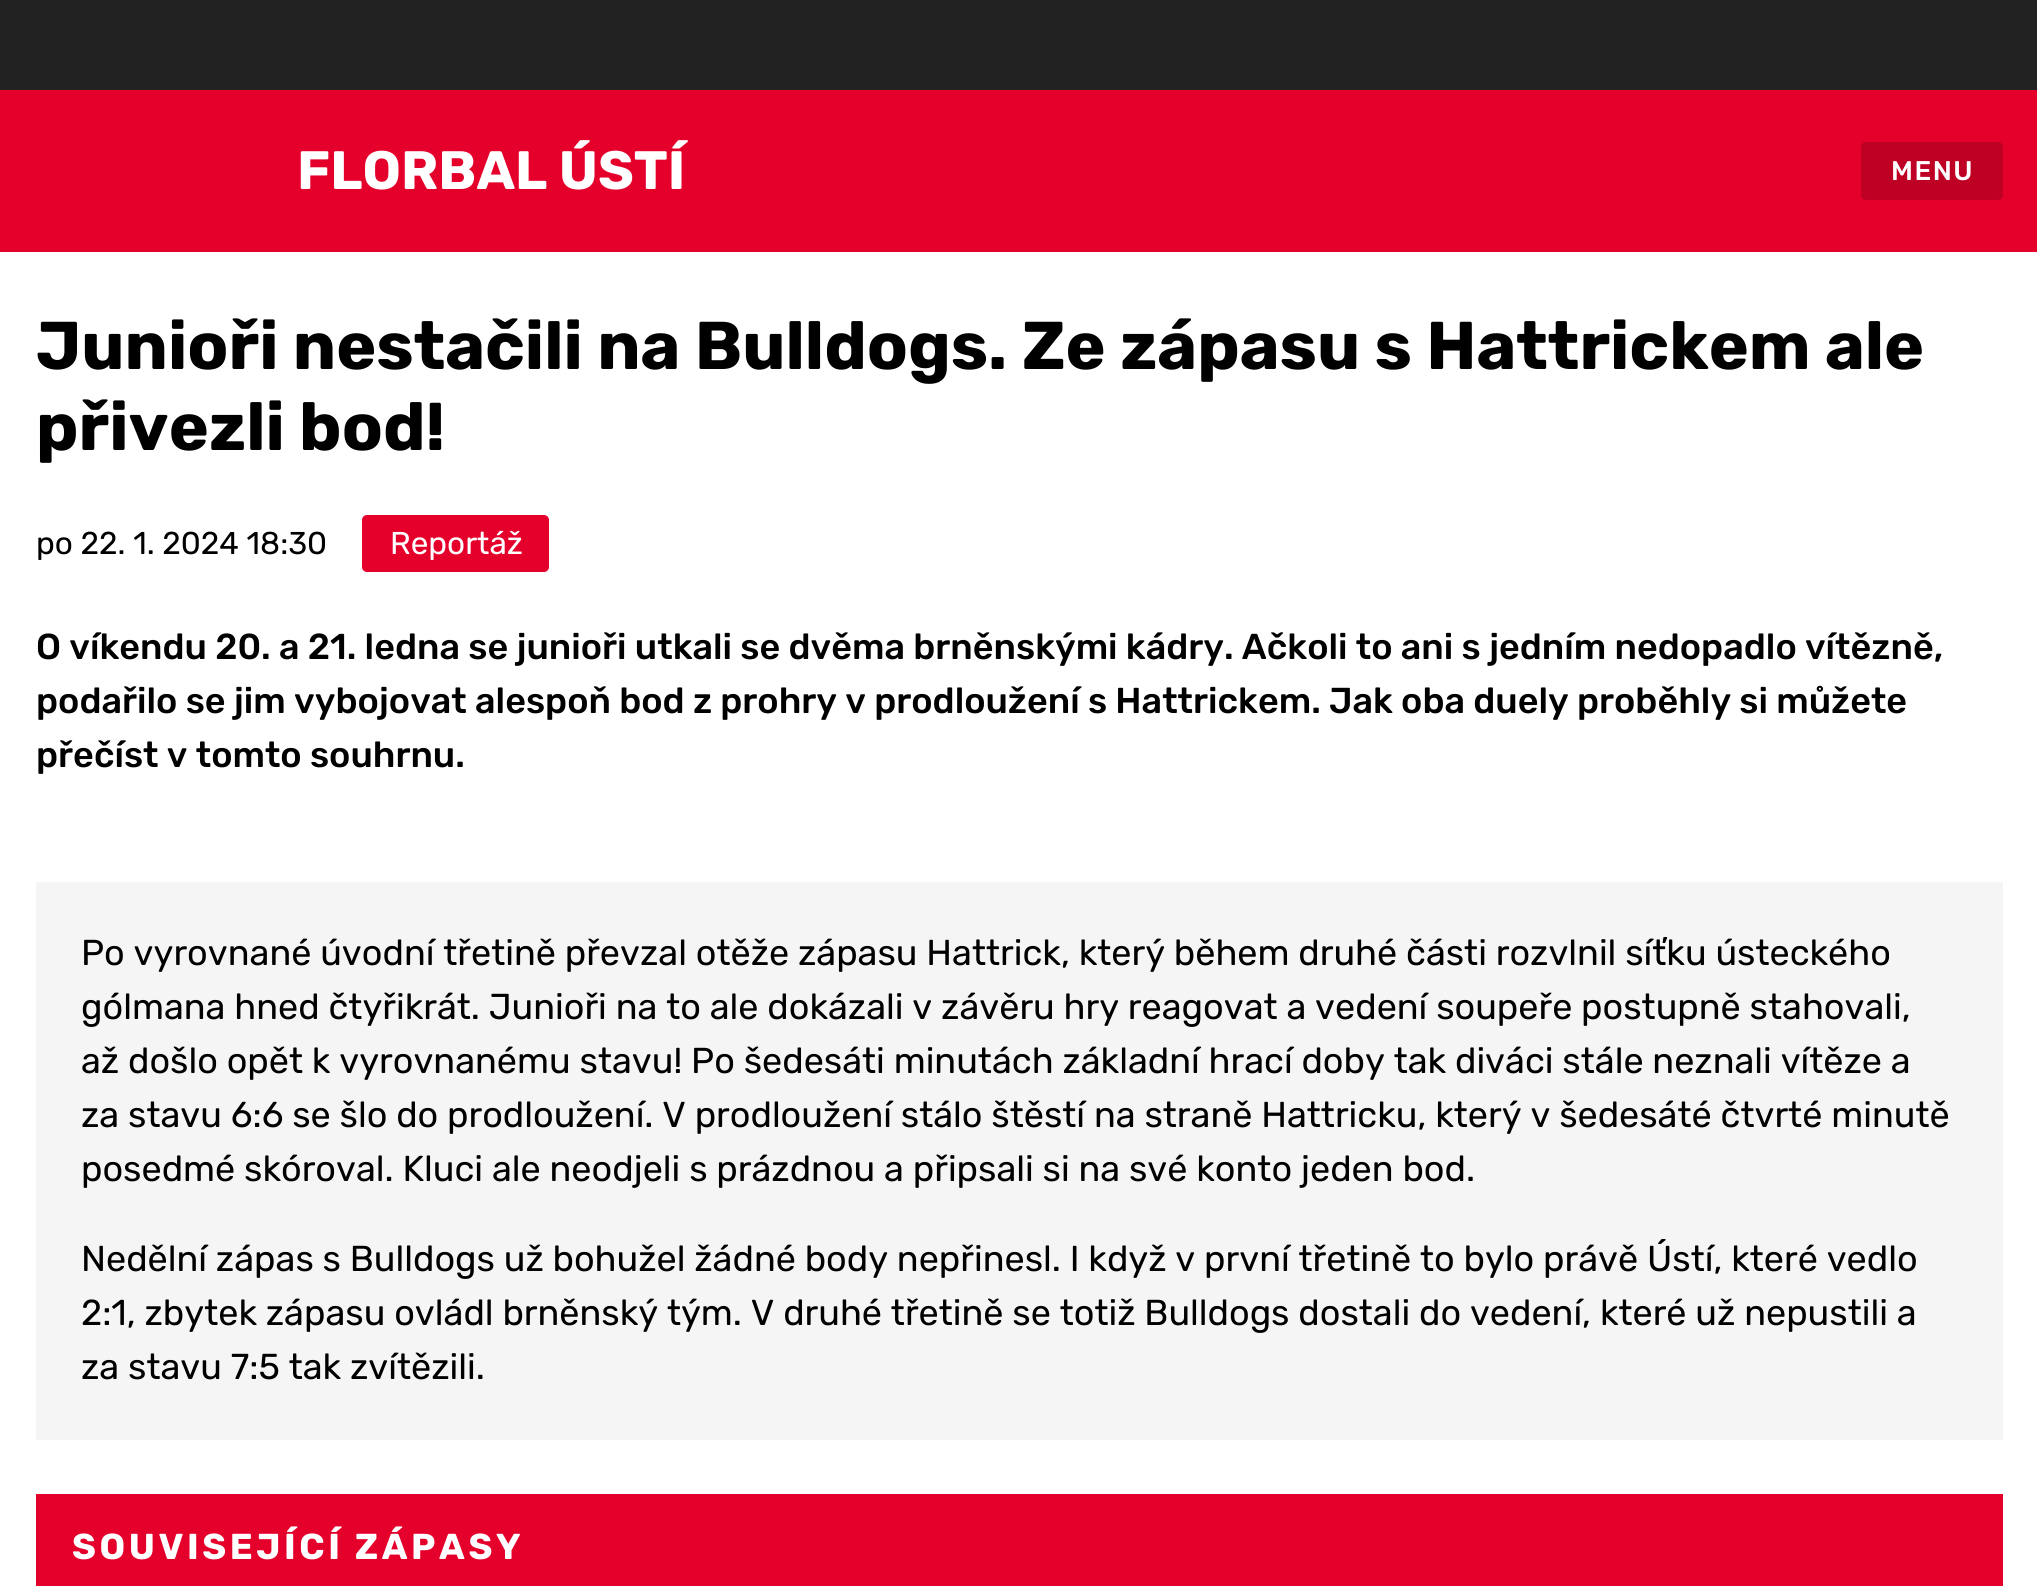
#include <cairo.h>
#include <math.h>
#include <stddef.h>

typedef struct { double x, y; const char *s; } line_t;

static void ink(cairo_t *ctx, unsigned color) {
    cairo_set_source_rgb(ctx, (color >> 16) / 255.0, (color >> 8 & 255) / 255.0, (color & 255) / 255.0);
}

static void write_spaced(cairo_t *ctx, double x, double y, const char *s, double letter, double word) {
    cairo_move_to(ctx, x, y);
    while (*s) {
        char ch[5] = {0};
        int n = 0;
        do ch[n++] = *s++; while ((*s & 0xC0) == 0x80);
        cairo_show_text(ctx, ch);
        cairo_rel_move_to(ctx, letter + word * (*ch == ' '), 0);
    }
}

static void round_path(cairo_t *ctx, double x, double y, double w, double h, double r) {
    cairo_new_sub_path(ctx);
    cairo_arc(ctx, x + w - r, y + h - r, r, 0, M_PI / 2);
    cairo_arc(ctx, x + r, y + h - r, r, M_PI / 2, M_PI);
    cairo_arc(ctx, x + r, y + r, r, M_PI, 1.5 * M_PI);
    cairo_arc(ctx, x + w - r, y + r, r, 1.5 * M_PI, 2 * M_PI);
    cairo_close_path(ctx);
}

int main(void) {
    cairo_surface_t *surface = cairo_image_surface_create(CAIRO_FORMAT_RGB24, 2037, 1586);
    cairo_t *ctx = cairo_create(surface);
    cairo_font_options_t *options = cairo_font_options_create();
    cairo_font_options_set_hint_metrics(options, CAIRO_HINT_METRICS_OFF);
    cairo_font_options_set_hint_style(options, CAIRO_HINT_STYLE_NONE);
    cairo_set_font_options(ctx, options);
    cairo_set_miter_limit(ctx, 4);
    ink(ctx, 0xFFFFFF);
    cairo_paint(ctx);
    ink(ctx, 0x222222);
    cairo_rectangle(ctx, 0, 0, 2037, 90);
    cairo_fill(ctx);
    ink(ctx, 0xE4002B);
    cairo_rectangle(ctx, 0, 90, 2037, 162);
    cairo_fill(ctx);
    cairo_select_font_face(ctx, "Rubik", CAIRO_FONT_SLANT_NORMAL, CAIRO_FONT_WEIGHT_BOLD);
    cairo_set_font_size(ctx, 54);
    ink(ctx, 0xFFFFFF);
    cairo_move_to(ctx, 297, 189);
    cairo_show_text(ctx, "FLORBAL ÚSTÍ");
    ink(ctx, 0xBE0024);
    round_path(ctx, 1861, 142, 142, 58, 5);
    cairo_fill(ctx);
    cairo_select_font_face(ctx, "Rubik Medium", CAIRO_FONT_SLANT_NORMAL, CAIRO_FONT_WEIGHT_NORMAL);
    cairo_set_font_size(ctx, 27);
    ink(ctx, 0xFFFFFF);
    write_spaced(ctx, 1891, 180, "MENU", 1.5, 0);
    cairo_select_font_face(ctx, "Rubik", CAIRO_FONT_SLANT_NORMAL, CAIRO_FONT_WEIGHT_BOLD);
    cairo_set_font_size(ctx, 67.5);
    ink(ctx, 0x000000);
    cairo_move_to(ctx, 36, 369);
    cairo_show_text(ctx, "Junioři nestačili na Bulldogs. Ze zápasu s Hattrickem ale");
    cairo_move_to(ctx, 36, 450);
    cairo_show_text(ctx, "přivezli bod!");
    cairo_select_font_face(ctx, "Rubik", CAIRO_FONT_SLANT_NORMAL, CAIRO_FONT_WEIGHT_NORMAL);
    cairo_set_font_size(ctx, 31.5);
    cairo_move_to(ctx, 36, 554);
    cairo_show_text(ctx, "po 22. 1. 2024 18:30");
    ink(ctx, 0xE4002B);
    round_path(ctx, 362, 515, 187, 57, 5);
    cairo_fill(ctx);
    ink(ctx, 0xFFFFFF);
    cairo_move_to(ctx, 390, 554);
    cairo_show_text(ctx, "Reportáž");
    cairo_select_font_face(ctx, "Rubik Medium", CAIRO_FONT_SLANT_NORMAL, CAIRO_FONT_WEIGHT_NORMAL);
    cairo_set_font_size(ctx, 36);
    ink(ctx, 0x000000);
    {
        static const line_t items[] = {
            {36, 659, "O víkendu 20. a 21. ledna se junioři utkali se dvěma brněnskými kádry. Ačkoli to ani s jedním nedopadlo vítězně,"},
            {36, 713, "podařilo se jim vybojovat alespoň bod z prohry v prodloužení s Hattrickem. Jak oba duely proběhly si můžete"},
            {36, 767, "přečíst v tomto souhrnu."},
        };
        for (size_t i = 0; i < sizeof items / sizeof *items; i++) {
            cairo_move_to(ctx, items[i].x, items[i].y);
            cairo_show_text(ctx, items[i].s);
        }
    }
    ink(ctx, 0xF5F5F5);
    cairo_rectangle(ctx, 36, 882, 1967, 558);
    cairo_fill(ctx);
    cairo_select_font_face(ctx, "Rubik", CAIRO_FONT_SLANT_NORMAL, CAIRO_FONT_WEIGHT_NORMAL);
    ink(ctx, 0x000000);
    {
        static const line_t items[] = {
            {81, 965, "Po vyrovnané úvodní třetině převzal otěže zápasu Hattrick, který během druhé části rozvlnil síťku ústeckého"},
            {81, 1019, "gólmana hned čtyřikrát. Junioři na to ale dokázali v závěru hry reagovat a vedení soupeře postupně stahovali,"},
            {81, 1073, "až došlo opět k vyrovnanému stavu! Po šedesáti minutách základní hrací doby tak diváci stále neznali vítěze a"},
            {81, 1127, "za stavu 6:6 se šlo do prodloužení. V prodloužení stálo štěstí na straně Hattricku, který v šedesáté čtvrté minutě"},
            {81, 1181, "posedmé skóroval. Kluci ale neodjeli s prázdnou a připsali si na své konto jeden bod."},
            {81, 1271, "Nedělní zápas s Bulldogs už bohužel žádné body nepřinesl. I když v první třetině to bylo právě Ústí, které vedlo"},
            {81, 1325, "2:1, zbytek zápasu ovládl brněnský tým. V druhé třetině se totiž Bulldogs dostali do vedení, které už nepustili a"},
            {81, 1379, "za stavu 7:5 tak zvítězili."},
        };
        for (size_t i = 0; i < sizeof items / sizeof *items; i++) {
            cairo_move_to(ctx, items[i].x, items[i].y);
            cairo_show_text(ctx, items[i].s);
        }
    }
    ink(ctx, 0xE4002B);
    cairo_rectangle(ctx, 36, 1494, 1967, 92);
    cairo_fill(ctx);
    cairo_select_font_face(ctx, "Rubik", CAIRO_FONT_SLANT_NORMAL, CAIRO_FONT_WEIGHT_BOLD);
    ink(ctx, 0xFFFFFF);
    write_spaced(ctx, 72, 1559, "SOUVISEJÍCÍ ZÁPASY", 3.6, 0);
    cairo_surface_write_to_png(surface, "image.png");
    cairo_font_options_destroy(options);
    cairo_destroy(ctx);
    cairo_surface_destroy(surface);
    return 0;
}
